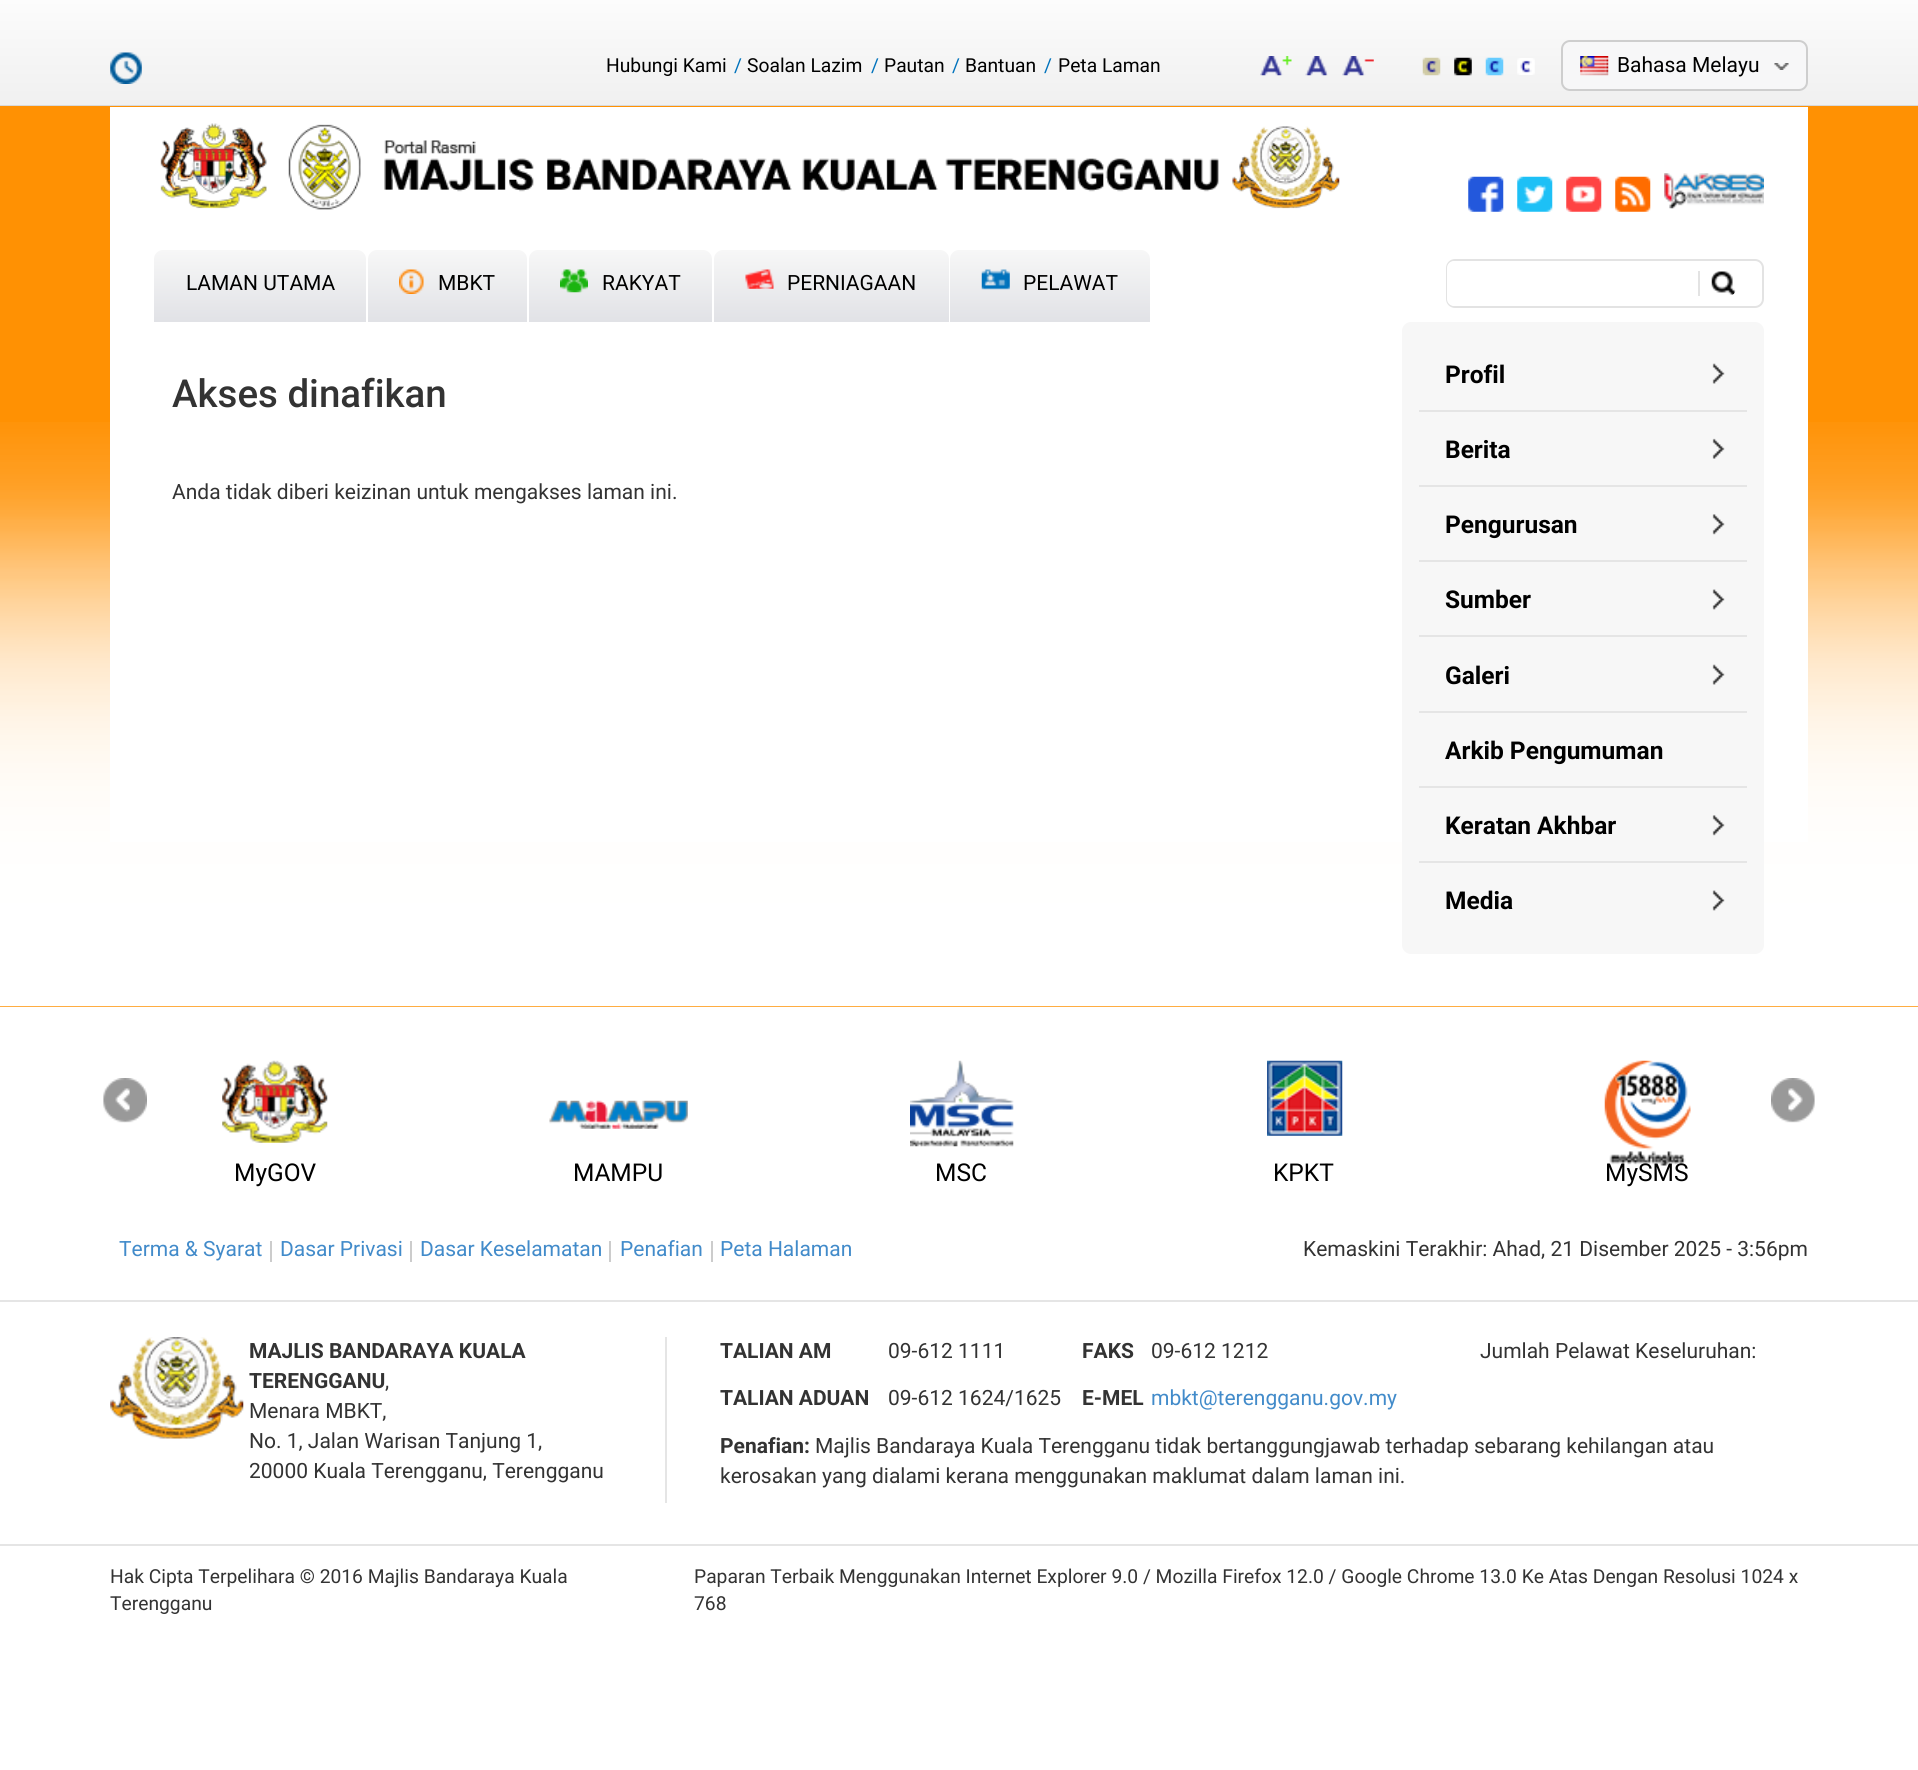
#include <cairo.h>
#include <math.h>
#include <stddef.h>

typedef struct { double x, y; const char *s; } line_t;

static void ink(cairo_t *ctx, unsigned color) {
    cairo_set_source_rgb(ctx, (color >> 16) / 255.0, (color >> 8 & 255) / 255.0, (color & 255) / 255.0);
}

static void round_path(cairo_t *ctx, double x, double y, double w, double h, double r) {
    cairo_new_sub_path(ctx);
    cairo_arc(ctx, x + w - r, y + h - r, r, 0, M_PI / 2);
    cairo_arc(ctx, x + r, y + h - r, r, M_PI / 2, M_PI);
    cairo_arc(ctx, x + r, y + r, r, M_PI, 1.5 * M_PI);
    cairo_arc(ctx, x + w - r, y + r, r, 1.5 * M_PI, 2 * M_PI);
    cairo_close_path(ctx);
}

static void paste(cairo_t *ctx, const char *path, double x, double y, double w, double h) {
    cairo_surface_t *image = cairo_image_surface_create_from_png(path);
    cairo_save(ctx);
    cairo_set_source_surface(ctx, image, x, y);
    cairo_rectangle(ctx, x, y, w, h);
    cairo_fill(ctx);
    cairo_restore(ctx);
    cairo_surface_destroy(image);
}

int main(void) {
    cairo_surface_t *surface = cairo_image_surface_create(CAIRO_FORMAT_RGB24, 1918, 1770);
    cairo_t *ctx = cairo_create(surface);
    cairo_font_options_t *options = cairo_font_options_create();
    cairo_font_options_set_hint_metrics(options, CAIRO_HINT_METRICS_OFF);
    cairo_font_options_set_hint_style(options, CAIRO_HINT_STYLE_NONE);
    cairo_set_font_options(ctx, options);
    cairo_set_miter_limit(ctx, 4);
    cairo_pattern_t *gradient;
    ink(ctx, 0xFFFFFF);
    cairo_paint(ctx);
    gradient = cairo_pattern_create_linear(959, 0, 959, 105);
    cairo_pattern_add_color_stop_rgba(gradient, 0, 0.988, 0.988, 0.988, 1);
    cairo_pattern_add_color_stop_rgba(gradient, 1, 0.941, 0.941, 0.941, 1);
    cairo_set_source(ctx, gradient);
    cairo_pattern_destroy(gradient);
    cairo_rectangle(ctx, 0, 0, 1918, 105);
    cairo_fill(ctx);
    ink(ctx, 0xD8D8D8);
    cairo_rectangle(ctx, 0, 105, 1918, 1);
    cairo_fill(ctx);
    paste(ctx, "media/1.png", 110, 52, 32, 32);
    cairo_select_font_face(ctx, "Roboto", CAIRO_FONT_SLANT_NORMAL, CAIRO_FONT_WEIGHT_NORMAL);
    cairo_set_font_size(ctx, 19.25);
    ink(ctx, 0x000000);
    cairo_move_to(ctx, 606, 72);
    cairo_show_text(ctx, "Hubungi Kami");
    ink(ctx, 0x0072BC);
    cairo_move_to(ctx, 734, 72);
    cairo_show_text(ctx, "/");
    ink(ctx, 0x000000);
    cairo_move_to(ctx, 747, 72);
    cairo_show_text(ctx, "Soalan Lazim");
    ink(ctx, 0x0072BC);
    cairo_move_to(ctx, 871, 72);
    cairo_show_text(ctx, "/");
    ink(ctx, 0x000000);
    cairo_move_to(ctx, 884, 72);
    cairo_show_text(ctx, "Pautan");
    ink(ctx, 0x0072BC);
    cairo_move_to(ctx, 952, 72);
    cairo_show_text(ctx, "/");
    ink(ctx, 0x000000);
    cairo_move_to(ctx, 965, 72);
    cairo_show_text(ctx, "Bantuan");
    ink(ctx, 0x0072BC);
    cairo_move_to(ctx, 1044, 72);
    cairo_show_text(ctx, "/");
    ink(ctx, 0x000000);
    cairo_move_to(ctx, 1058, 72);
    cairo_show_text(ctx, "Peta Laman");
    paste(ctx, "media/2.png", 1260, 56, 32, 20);
    paste(ctx, "media/3.png", 1305, 56, 23, 20);
    paste(ctx, "media/4.png", 1342, 56, 32, 20);
    paste(ctx, "media/5.png", 1422, 57, 19, 19);
    paste(ctx, "media/6.png", 1454, 57, 18, 19);
    paste(ctx, "media/7.png", 1485, 57, 19, 19);
    paste(ctx, "media/8.png", 1517, 58, 18, 17);
    ink(ctx, 0xF7F7F8);
    round_path(ctx, 1562, 41, 245, 49, 8);
    cairo_fill_preserve(ctx);
    ink(ctx, 0xCECECE);
    cairo_stroke(ctx);
    paste(ctx, "media/9.png", 1580, 56, 29, 20);
    cairo_set_font_size(ctx, 21);
    ink(ctx, 0x000000);
    cairo_move_to(ctx, 1617, 72);
    cairo_show_text(ctx, "Bahasa Melayu");
    paste(ctx, "media/10.png", 1774, 63, 15, 7);
    ink(ctx, 0xFF9103);
    cairo_rectangle(ctx, 0, 106, 1918, 901);
    cairo_fill(ctx);
    paste(ctx, "media/26.png", 0, 422, 1918, 585);
    ink(ctx, 0xFFFFFF);
    cairo_rectangle(ctx, 110, 107, 1698, 735);
    cairo_fill(ctx);
    paste(ctx, "media/11.png", 160, 123, 1180, 87);
    paste(ctx, "media/12.png", 1468, 176, 36, 36);
    paste(ctx, "media/13.png", 1517, 176, 36, 36);
    paste(ctx, "media/14.png", 1566, 176, 36, 36);
    paste(ctx, "media/15.png", 1615, 176, 36, 36);
    paste(ctx, "media/16.png", 1664, 173, 100, 36);
    gradient = cairo_pattern_create_linear(260, 250, 260, 322);
    cairo_pattern_add_color_stop_rgba(gradient, 0, 0.969, 0.969, 0.969, 1);
    cairo_pattern_add_color_stop_rgba(gradient, 1, 0.882, 0.886, 0.902, 1);
    cairo_set_source(ctx, gradient);
    cairo_pattern_destroy(gradient);
    cairo_new_path(ctx);
    cairo_move_to(ctx, 163, 250);
    cairo_line_to(ctx, 357, 250);
    cairo_curve_to(ctx, 362, 250, 366, 254, 366, 259);
    cairo_line_to(ctx, 366, 322);
    cairo_line_to(ctx, 154, 322);
    cairo_line_to(ctx, 154, 259);
    cairo_curve_to(ctx, 154, 254, 158, 250, 163, 250);
    cairo_close_path(ctx);
    cairo_fill(ctx);
    ink(ctx, 0x000000);
    cairo_move_to(ctx, 186, 290);
    cairo_show_text(ctx, "LAMAN UTAMA");
    gradient = cairo_pattern_create_linear(447, 250, 447, 322);
    cairo_pattern_add_color_stop_rgba(gradient, 0, 0.969, 0.969, 0.969, 1);
    cairo_pattern_add_color_stop_rgba(gradient, 1, 0.882, 0.886, 0.902, 1);
    cairo_set_source(ctx, gradient);
    cairo_pattern_destroy(gradient);
    cairo_new_path(ctx);
    cairo_move_to(ctx, 377, 250);
    cairo_line_to(ctx, 518, 250);
    cairo_curve_to(ctx, 523, 250, 527, 254, 527, 259);
    cairo_line_to(ctx, 527, 322);
    cairo_line_to(ctx, 368, 322);
    cairo_line_to(ctx, 368, 259);
    cairo_curve_to(ctx, 368, 254, 372, 250, 377, 250);
    cairo_close_path(ctx);
    cairo_fill(ctx);
    paste(ctx, "media/17.png", 399, 269, 25, 25);
    ink(ctx, 0x000000);
    cairo_move_to(ctx, 438, 290);
    cairo_show_text(ctx, "MBKT");
    gradient = cairo_pattern_create_linear(620, 250, 620, 322);
    cairo_pattern_add_color_stop_rgba(gradient, 0, 0.969, 0.969, 0.969, 1);
    cairo_pattern_add_color_stop_rgba(gradient, 1, 0.882, 0.886, 0.902, 1);
    cairo_set_source(ctx, gradient);
    cairo_pattern_destroy(gradient);
    cairo_new_path(ctx);
    cairo_move_to(ctx, 538, 250);
    cairo_line_to(ctx, 703, 250);
    cairo_curve_to(ctx, 708, 250, 712, 254, 712, 259);
    cairo_line_to(ctx, 712, 322);
    cairo_line_to(ctx, 529, 322);
    cairo_line_to(ctx, 529, 259);
    cairo_curve_to(ctx, 529, 254, 533, 250, 538, 250);
    cairo_close_path(ctx);
    cairo_fill(ctx);
    paste(ctx, "media/18.png", 560, 269, 28, 24);
    ink(ctx, 0x000000);
    cairo_move_to(ctx, 602, 290);
    cairo_show_text(ctx, "RAKYAT");
    gradient = cairo_pattern_create_linear(831, 250, 831, 322);
    cairo_pattern_add_color_stop_rgba(gradient, 0, 0.969, 0.969, 0.969, 1);
    cairo_pattern_add_color_stop_rgba(gradient, 1, 0.882, 0.886, 0.902, 1);
    cairo_set_source(ctx, gradient);
    cairo_pattern_destroy(gradient);
    cairo_new_path(ctx);
    cairo_move_to(ctx, 723, 250);
    cairo_line_to(ctx, 940, 250);
    cairo_curve_to(ctx, 945, 250, 949, 254, 949, 259);
    cairo_line_to(ctx, 949, 322);
    cairo_line_to(ctx, 714, 322);
    cairo_line_to(ctx, 714, 259);
    cairo_curve_to(ctx, 714, 254, 718, 250, 723, 250);
    cairo_close_path(ctx);
    cairo_fill(ctx);
    paste(ctx, "media/19.png", 745, 269, 29, 20);
    ink(ctx, 0x000000);
    cairo_move_to(ctx, 787, 290);
    cairo_show_text(ctx, "PERNIAGAAN");
    gradient = cairo_pattern_create_linear(1050, 250, 1050, 322);
    cairo_pattern_add_color_stop_rgba(gradient, 0, 0.969, 0.969, 0.969, 1);
    cairo_pattern_add_color_stop_rgba(gradient, 1, 0.882, 0.886, 0.902, 1);
    cairo_set_source(ctx, gradient);
    cairo_pattern_destroy(gradient);
    cairo_new_path(ctx);
    cairo_move_to(ctx, 959, 250);
    cairo_line_to(ctx, 1141, 250);
    cairo_curve_to(ctx, 1146, 250, 1150, 254, 1150, 259);
    cairo_line_to(ctx, 1150, 322);
    cairo_line_to(ctx, 950, 322);
    cairo_line_to(ctx, 950, 259);
    cairo_curve_to(ctx, 950, 254, 954, 250, 959, 250);
    cairo_close_path(ctx);
    cairo_fill(ctx);
    paste(ctx, "media/20.png", 981, 269, 29, 21);
    ink(ctx, 0x000000);
    cairo_move_to(ctx, 1023, 290);
    cairo_show_text(ctx, "PELAWAT");
    round_path(ctx, 1447, 260, 316, 47, 8);
    ink(ctx, 0xE3E3E3);
    cairo_stroke(ctx);
    ink(ctx, 0xFFFFFF);
    round_path(ctx, 1447, 261, 259, 45, 7);
    cairo_fill(ctx);
    ink(ctx, 0xE3E3E3);
    cairo_rectangle(ctx, 1698, 271, 2, 25);
    cairo_fill(ctx);
    paste(ctx, "media/21.png", 1711, 271, 25, 24);
    cairo_select_font_face(ctx, "Roboto Medium", CAIRO_FONT_SLANT_NORMAL, CAIRO_FONT_WEIGHT_NORMAL);
    cairo_set_font_size(ctx, 38.5);
    ink(ctx, 0x333333);
    cairo_move_to(ctx, 172, 407);
    cairo_show_text(ctx, "Akses dinafikan");
    cairo_select_font_face(ctx, "Roboto", CAIRO_FONT_SLANT_NORMAL, CAIRO_FONT_WEIGHT_NORMAL);
    cairo_set_font_size(ctx, 21);
    cairo_move_to(ctx, 172, 499);
    cairo_show_text(ctx, "Anda tidak diberi keizinan untuk mengakses laman ini.");
    ink(ctx, 0xF7F7F7);
    round_path(ctx, 1402, 322, 362, 632, 9);
    cairo_fill(ctx);
    ink(ctx, 0xE5E5E5);
    cairo_rectangle(ctx, 1419, 410, 328, 2);
    cairo_fill(ctx);
    cairo_select_font_face(ctx, "Roboto", CAIRO_FONT_SLANT_NORMAL, CAIRO_FONT_WEIGHT_BOLD);
    cairo_set_font_size(ctx, 24.5);
    ink(ctx, 0x000000);
    cairo_move_to(ctx, 1445, 383);
    cairo_show_text(ctx, "Profil");
    paste(ctx, "media/22.png", 1712, 363, 13, 21);
    ink(ctx, 0xE5E5E5);
    cairo_rectangle(ctx, 1419, 485, 328, 2);
    cairo_fill(ctx);
    ink(ctx, 0x000000);
    cairo_move_to(ctx, 1445, 458);
    cairo_show_text(ctx, "Berita");
    paste(ctx, "media/23.png", 1712, 438, 13, 21);
    ink(ctx, 0xE5E5E5);
    cairo_rectangle(ctx, 1419, 560, 328, 2);
    cairo_fill(ctx);
    ink(ctx, 0x000000);
    cairo_move_to(ctx, 1445, 533);
    cairo_show_text(ctx, "Pengurusan");
    paste(ctx, "media/24.png", 1712, 514, 13, 21);
    ink(ctx, 0xE5E5E5);
    cairo_rectangle(ctx, 1419, 635, 328, 2);
    cairo_fill(ctx);
    ink(ctx, 0x000000);
    cairo_move_to(ctx, 1445, 608);
    cairo_show_text(ctx, "Sumber");
    paste(ctx, "media/25.png", 1712, 589, 13, 21);
    ink(ctx, 0xE5E5E5);
    cairo_rectangle(ctx, 1419, 711, 328, 2);
    cairo_fill(ctx);
    ink(ctx, 0x000000);
    cairo_move_to(ctx, 1445, 684);
    cairo_show_text(ctx, "Galeri");
    paste(ctx, "media/22.png", 1712, 664, 13, 21);
    ink(ctx, 0xE5E5E5);
    cairo_rectangle(ctx, 1419, 786, 328, 2);
    cairo_fill(ctx);
    ink(ctx, 0x000000);
    cairo_move_to(ctx, 1445, 759);
    cairo_show_text(ctx, "Arkib Pengumuman");
    ink(ctx, 0xE5E5E5);
    cairo_rectangle(ctx, 1419, 861, 328, 2);
    cairo_fill(ctx);
    ink(ctx, 0x000000);
    cairo_move_to(ctx, 1445, 834);
    cairo_show_text(ctx, "Keratan Akhbar");
    paste(ctx, "media/24.png", 1712, 815, 13, 21);
    cairo_move_to(ctx, 1445, 909);
    cairo_show_text(ctx, "Media");
    paste(ctx, "media/25.png", 1712, 890, 13, 21);
    paste(ctx, "media/27.png", 103, 1078, 44, 45);
    paste(ctx, "media/28.png", 1771, 1078, 44, 45);
    paste(ctx, "media/29.png", 222, 1060, 106, 83);
    cairo_select_font_face(ctx, "Roboto", CAIRO_FONT_SLANT_NORMAL, CAIRO_FONT_WEIGHT_NORMAL);
    cairo_move_to(ctx, 234, 1181);
    cairo_show_text(ctx, "MyGOV");
    paste(ctx, "media/30.png", 549, 1100, 139, 29);
    cairo_move_to(ctx, 573, 1181);
    cairo_show_text(ctx, "MAMPU");
    paste(ctx, "media/31.png", 910, 1060, 104, 87);
    cairo_move_to(ctx, 935, 1181);
    cairo_show_text(ctx, "MSC");
    paste(ctx, "media/32.png", 1267, 1060, 76, 76);
    cairo_move_to(ctx, 1273, 1181);
    cairo_show_text(ctx, "KPKT");
    paste(ctx, "media/33.png", 1604, 1060, 87, 106);
    cairo_move_to(ctx, 1605, 1181);
    cairo_show_text(ctx, "MySMS");
    cairo_set_font_size(ctx, 21);
    ink(ctx, 0x428BCA);
    cairo_move_to(ctx, 119, 1256);
    cairo_show_text(ctx, "Terma & Syarat");
    ink(ctx, 0xCCCCCC);
    cairo_rectangle(ctx, 270, 1241, 2, 21);
    cairo_fill(ctx);
    ink(ctx, 0x428BCA);
    cairo_move_to(ctx, 280, 1256);
    cairo_show_text(ctx, "Dasar Privasi");
    ink(ctx, 0xCCCCCC);
    cairo_rectangle(ctx, 410, 1241, 2, 21);
    cairo_fill(ctx);
    ink(ctx, 0x428BCA);
    cairo_move_to(ctx, 420, 1256);
    cairo_show_text(ctx, "Dasar Keselamatan");
    ink(ctx, 0xCCCCCC);
    cairo_rectangle(ctx, 609, 1241, 2, 21);
    cairo_fill(ctx);
    ink(ctx, 0x428BCA);
    cairo_move_to(ctx, 620, 1256);
    cairo_show_text(ctx, "Penafian");
    ink(ctx, 0xCCCCCC);
    cairo_rectangle(ctx, 711, 1241, 2, 21);
    cairo_fill(ctx);
    ink(ctx, 0x428BCA);
    cairo_move_to(ctx, 720, 1256);
    cairo_show_text(ctx, "Peta Halaman");
    ink(ctx, 0x333333);
    cairo_move_to(ctx, 1303, 1256);
    cairo_show_text(ctx, "Kemaskini Terakhir: Ahad, 21 Disember 2025 - 3:56pm");
    ink(ctx, 0xE5E5E5);
    cairo_rectangle(ctx, 0, 1300, 1918, 2);
    cairo_fill(ctx);
    cairo_rectangle(ctx, 665, 1337, 2, 166);
    cairo_fill(ctx);
    paste(ctx, "media/34.png", 110, 1337, 134, 102);
    cairo_select_font_face(ctx, "Roboto", CAIRO_FONT_SLANT_NORMAL, CAIRO_FONT_WEIGHT_BOLD);
    ink(ctx, 0x333333);
    cairo_move_to(ctx, 249, 1358);
    cairo_show_text(ctx, "MAJLIS BANDARAYA KUALA");
    cairo_move_to(ctx, 249, 1388);
    cairo_show_text(ctx, "TERENGGANU");
    cairo_select_font_face(ctx, "Roboto", CAIRO_FONT_SLANT_NORMAL, CAIRO_FONT_WEIGHT_NORMAL);
    {
        static const line_t items[] = {
            {385, 1388, ","},
            {249, 1418, "Menara MBKT,"},
            {249, 1448, "No. 1, Jalan Warisan Tanjung 1,"},
            {249, 1478, "20000 Kuala Terengganu, Terengganu"},
        };
        for (size_t i = 0; i < sizeof items / sizeof *items; i++) {
            cairo_move_to(ctx, items[i].x, items[i].y);
            cairo_show_text(ctx, items[i].s);
        }
    }
    cairo_select_font_face(ctx, "Roboto", CAIRO_FONT_SLANT_NORMAL, CAIRO_FONT_WEIGHT_BOLD);
    cairo_move_to(ctx, 720, 1358);
    cairo_show_text(ctx, "TALIAN AM");
    cairo_select_font_face(ctx, "Roboto", CAIRO_FONT_SLANT_NORMAL, CAIRO_FONT_WEIGHT_NORMAL);
    cairo_move_to(ctx, 888, 1358);
    cairo_show_text(ctx, "09-612 1111");
    cairo_select_font_face(ctx, "Roboto", CAIRO_FONT_SLANT_NORMAL, CAIRO_FONT_WEIGHT_BOLD);
    cairo_move_to(ctx, 1082, 1358);
    cairo_show_text(ctx, "FAKS");
    cairo_select_font_face(ctx, "Roboto", CAIRO_FONT_SLANT_NORMAL, CAIRO_FONT_WEIGHT_NORMAL);
    cairo_move_to(ctx, 1151, 1358);
    cairo_show_text(ctx, "09-612 1212");
    cairo_select_font_face(ctx, "Roboto", CAIRO_FONT_SLANT_NORMAL, CAIRO_FONT_WEIGHT_BOLD);
    cairo_move_to(ctx, 720, 1405);
    cairo_show_text(ctx, "TALIAN ADUAN");
    cairo_select_font_face(ctx, "Roboto", CAIRO_FONT_SLANT_NORMAL, CAIRO_FONT_WEIGHT_NORMAL);
    cairo_move_to(ctx, 888, 1405);
    cairo_show_text(ctx, "09-612 1624/1625");
    cairo_select_font_face(ctx, "Roboto", CAIRO_FONT_SLANT_NORMAL, CAIRO_FONT_WEIGHT_BOLD);
    cairo_move_to(ctx, 1082, 1405);
    cairo_show_text(ctx, "E-MEL");
    cairo_select_font_face(ctx, "Roboto", CAIRO_FONT_SLANT_NORMAL, CAIRO_FONT_WEIGHT_NORMAL);
    ink(ctx, 0x428BCA);
    cairo_move_to(ctx, 1151, 1405);
    cairo_show_text(ctx, "mbkt@terengganu.gov.my");
    ink(ctx, 0x333333);
    cairo_move_to(ctx, 1480, 1358);
    cairo_show_text(ctx, "Jumlah Pelawat Keseluruhan:");
    cairo_select_font_face(ctx, "Roboto", CAIRO_FONT_SLANT_NORMAL, CAIRO_FONT_WEIGHT_BOLD);
    cairo_move_to(ctx, 720, 1453);
    cairo_show_text(ctx, "Penafian:");
    cairo_select_font_face(ctx, "Roboto", CAIRO_FONT_SLANT_NORMAL, CAIRO_FONT_WEIGHT_NORMAL);
    cairo_move_to(ctx, 815, 1453);
    cairo_show_text(ctx, "Majlis Bandaraya Kuala Terengganu tidak bertanggungjawab terhadap sebarang kehilangan atau");
    cairo_move_to(ctx, 720, 1483);
    cairo_show_text(ctx, "kerosakan yang dialami kerana menggunakan maklumat dalam laman ini.");
    ink(ctx, 0xE5E5E5);
    cairo_rectangle(ctx, 0, 1544, 1918, 2);
    cairo_fill(ctx);
    cairo_set_font_size(ctx, 19.25);
    ink(ctx, 0x333333);
    {
        static const line_t items[] = {
            {110, 1583, "Hak Cipta Terpelihara © 2016 Majlis Bandaraya Kuala"},
            {110, 1610, "Terengganu"},
            {694, 1583, "Paparan Terbaik Menggunakan Internet Explorer 9.0 / Mozilla Firefox 12.0 / Google Chrome 13.0 Ke Atas Dengan Resolusi 1024 x"},
            {694, 1610, "768"},
        };
        for (size_t i = 0; i < sizeof items / sizeof *items; i++) {
            cairo_move_to(ctx, items[i].x, items[i].y);
            cairo_show_text(ctx, items[i].s);
        }
    }
    cairo_surface_write_to_png(surface, "image.png");
    cairo_font_options_destroy(options);
    cairo_destroy(ctx);
    cairo_surface_destroy(surface);
    return 0;
}
